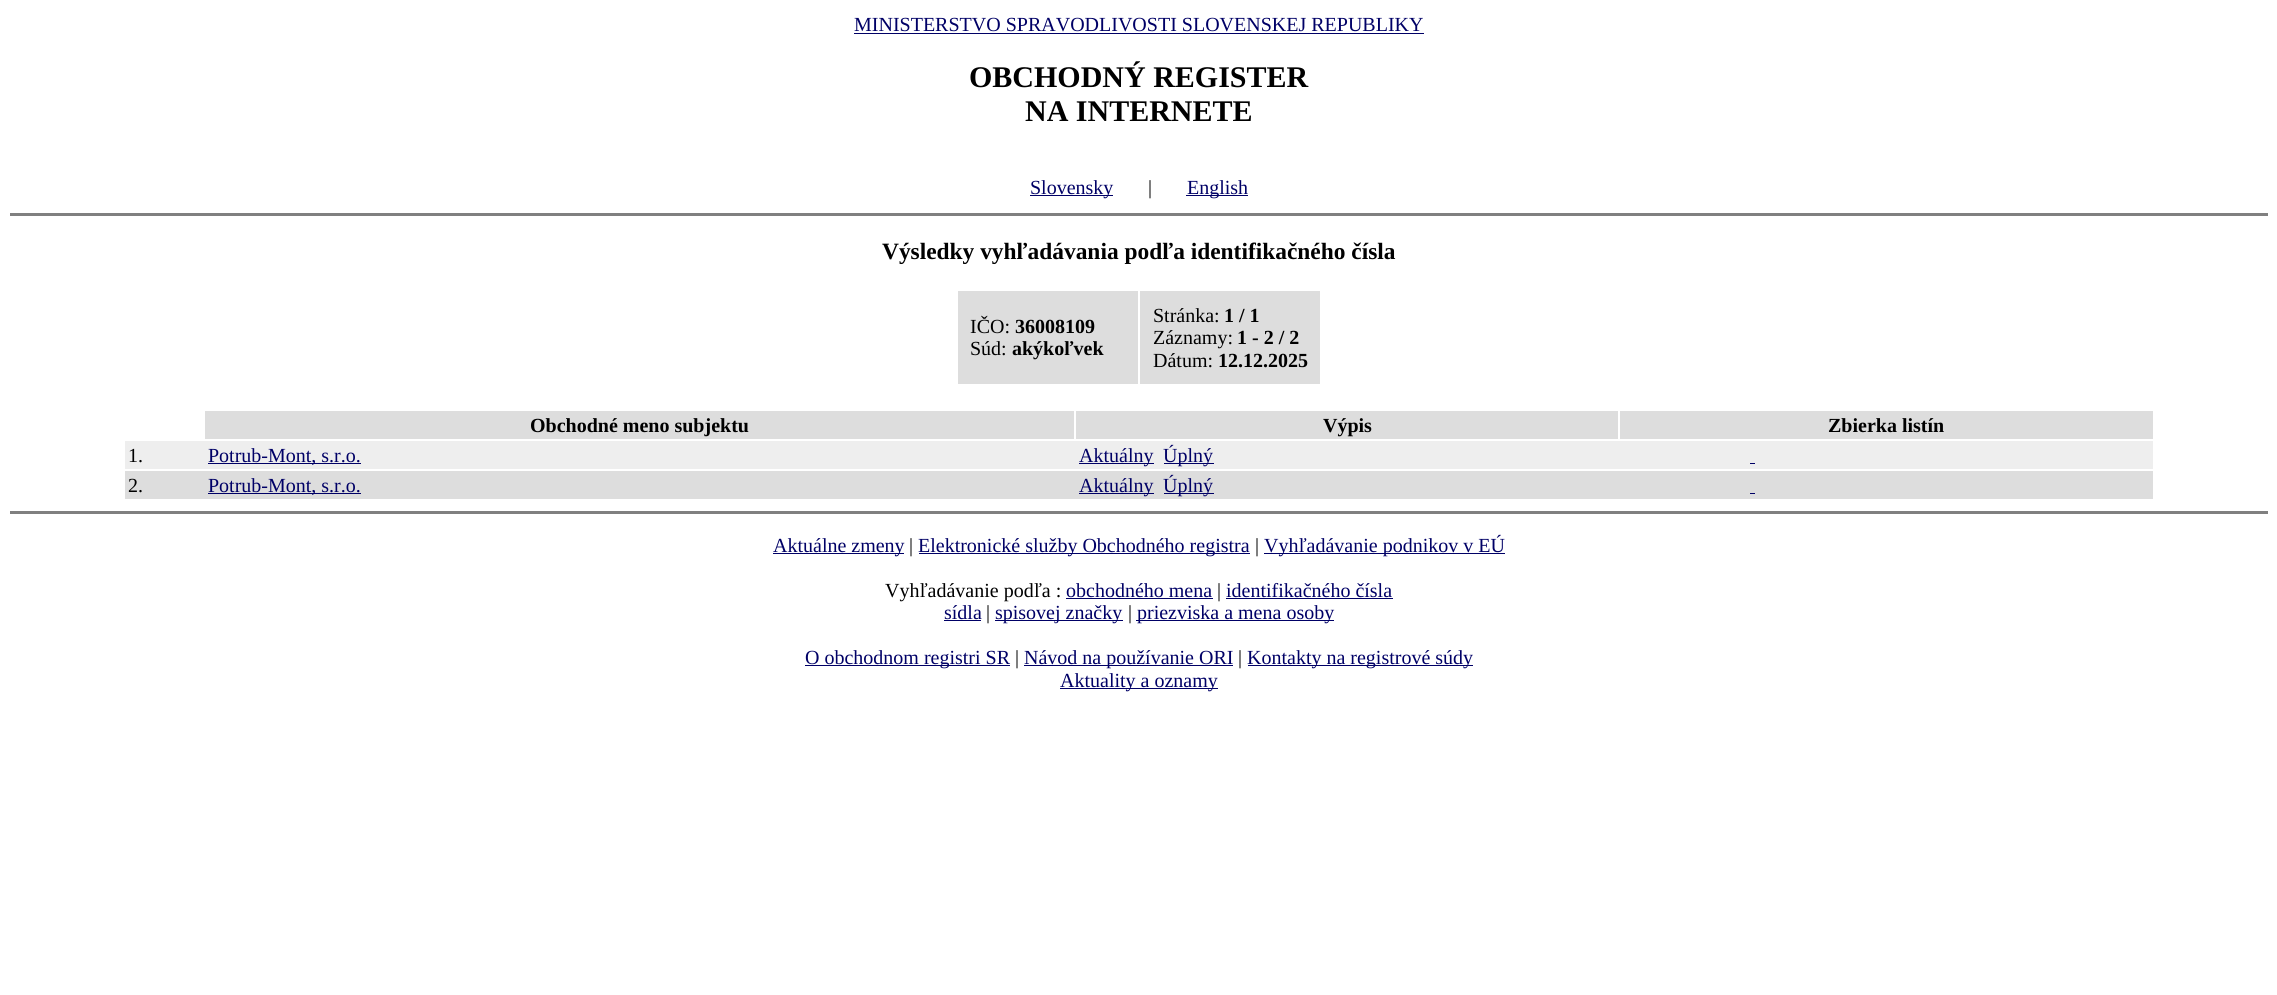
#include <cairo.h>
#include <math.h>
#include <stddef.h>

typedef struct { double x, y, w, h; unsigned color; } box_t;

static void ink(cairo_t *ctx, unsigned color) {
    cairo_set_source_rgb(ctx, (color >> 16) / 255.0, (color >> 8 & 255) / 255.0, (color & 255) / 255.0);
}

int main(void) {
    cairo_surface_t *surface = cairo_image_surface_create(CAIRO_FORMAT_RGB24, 2277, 995);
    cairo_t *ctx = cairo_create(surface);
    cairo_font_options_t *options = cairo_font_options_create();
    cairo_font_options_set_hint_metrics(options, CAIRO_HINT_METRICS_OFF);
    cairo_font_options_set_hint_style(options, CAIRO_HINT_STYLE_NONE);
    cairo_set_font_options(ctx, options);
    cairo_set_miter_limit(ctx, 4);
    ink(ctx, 0xFFFFFF);
    cairo_paint(ctx);
    cairo_select_font_face(ctx, "Liberation Serif", CAIRO_FONT_SLANT_NORMAL, CAIRO_FONT_WEIGHT_NORMAL);
    cairo_set_font_size(ctx, 20);
    ink(ctx, 0x000066);
    cairo_move_to(ctx, 854, 31);
    cairo_show_text(ctx, "MINISTERSTVO SPRAVODLIVOSTI SLOVENSKEJ REPUBLIKY");
    cairo_rectangle(ctx, 854, 33, 570, 1);
    cairo_fill(ctx);
    cairo_select_font_face(ctx, "Liberation Serif", CAIRO_FONT_SLANT_NORMAL, CAIRO_FONT_WEIGHT_BOLD);
    cairo_set_font_size(ctx, 30);
    ink(ctx, 0x000000);
    cairo_move_to(ctx, 969, 87);
    cairo_show_text(ctx, "OBCHODNÝ REGISTER");
    cairo_move_to(ctx, 1025, 121);
    cairo_show_text(ctx, "NA INTERNETE");
    ink(ctx, 0x000066);
    cairo_rectangle(ctx, 1030, 195, 83, 1);
    cairo_fill(ctx);
    cairo_select_font_face(ctx, "Liberation Serif", CAIRO_FONT_SLANT_NORMAL, CAIRO_FONT_WEIGHT_NORMAL);
    cairo_set_font_size(ctx, 20);
    cairo_move_to(ctx, 1030, 194);
    cairo_show_text(ctx, "Slovensky");
    ink(ctx, 0x000000);
    cairo_move_to(ctx, 1148, 194);
    cairo_show_text(ctx, "|");
    ink(ctx, 0x000066);
    cairo_rectangle(ctx, 1186, 195, 62, 1);
    cairo_fill(ctx);
    cairo_move_to(ctx, 1187, 194);
    cairo_show_text(ctx, "English");
    ink(ctx, 0x808080);
    cairo_rectangle(ctx, 10, 213, 2258, 3);
    cairo_fill(ctx);
    cairo_select_font_face(ctx, "Liberation Serif", CAIRO_FONT_SLANT_NORMAL, CAIRO_FONT_WEIGHT_BOLD);
    cairo_set_font_size(ctx, 23.4);
    ink(ctx, 0x000000);
    cairo_move_to(ctx, 882, 259);
    cairo_show_text(ctx, "Výsledky vyhľadávania podľa identifikačného čísla");
    ink(ctx, 0xDDDDDD);
    cairo_rectangle(ctx, 958, 291, 180, 93);
    cairo_fill(ctx);
    cairo_select_font_face(ctx, "Liberation Serif", CAIRO_FONT_SLANT_NORMAL, CAIRO_FONT_WEIGHT_NORMAL);
    cairo_set_font_size(ctx, 20);
    ink(ctx, 0x000000);
    cairo_move_to(ctx, 970, 333);
    cairo_show_text(ctx, "IČO:");
    cairo_select_font_face(ctx, "Liberation Serif", CAIRO_FONT_SLANT_NORMAL, CAIRO_FONT_WEIGHT_BOLD);
    cairo_move_to(ctx, 1015, 333);
    cairo_show_text(ctx, "36008109");
    cairo_select_font_face(ctx, "Liberation Serif", CAIRO_FONT_SLANT_NORMAL, CAIRO_FONT_WEIGHT_NORMAL);
    cairo_move_to(ctx, 970, 355);
    cairo_show_text(ctx, "Súd:");
    cairo_select_font_face(ctx, "Liberation Serif", CAIRO_FONT_SLANT_NORMAL, CAIRO_FONT_WEIGHT_BOLD);
    cairo_move_to(ctx, 1012, 355);
    cairo_show_text(ctx, "akýkoľvek");
    ink(ctx, 0xDDDDDD);
    cairo_rectangle(ctx, 1140, 291, 180, 93);
    cairo_fill(ctx);
    cairo_select_font_face(ctx, "Liberation Serif", CAIRO_FONT_SLANT_NORMAL, CAIRO_FONT_WEIGHT_NORMAL);
    ink(ctx, 0x000000);
    cairo_move_to(ctx, 1153, 322);
    cairo_show_text(ctx, "Stránka:");
    cairo_select_font_face(ctx, "Liberation Serif", CAIRO_FONT_SLANT_NORMAL, CAIRO_FONT_WEIGHT_BOLD);
    cairo_move_to(ctx, 1224, 322);
    cairo_show_text(ctx, "1 / 1");
    cairo_select_font_face(ctx, "Liberation Serif", CAIRO_FONT_SLANT_NORMAL, CAIRO_FONT_WEIGHT_NORMAL);
    cairo_move_to(ctx, 1153, 344);
    cairo_show_text(ctx, "Záznamy:");
    cairo_select_font_face(ctx, "Liberation Serif", CAIRO_FONT_SLANT_NORMAL, CAIRO_FONT_WEIGHT_BOLD);
    cairo_move_to(ctx, 1237, 344);
    cairo_show_text(ctx, "1 - 2 / 2");
    cairo_select_font_face(ctx, "Liberation Serif", CAIRO_FONT_SLANT_NORMAL, CAIRO_FONT_WEIGHT_NORMAL);
    cairo_move_to(ctx, 1153, 367);
    cairo_show_text(ctx, "Dátum:");
    cairo_select_font_face(ctx, "Liberation Serif", CAIRO_FONT_SLANT_NORMAL, CAIRO_FONT_WEIGHT_BOLD);
    cairo_move_to(ctx, 1218, 367);
    cairo_show_text(ctx, "12.12.2025");
    ink(ctx, 0xDDDDDD);
    cairo_rectangle(ctx, 205, 411, 869, 28);
    cairo_fill(ctx);
    ink(ctx, 0x000000);
    cairo_move_to(ctx, 530, 432);
    cairo_show_text(ctx, "Obchodné meno subjektu");
    ink(ctx, 0xDDDDDD);
    cairo_rectangle(ctx, 1076, 411, 542, 28);
    cairo_fill(ctx);
    ink(ctx, 0x000000);
    cairo_move_to(ctx, 1323, 432);
    cairo_show_text(ctx, "Výpis");
    ink(ctx, 0xDDDDDD);
    cairo_rectangle(ctx, 1620, 411, 533, 28);
    cairo_fill(ctx);
    ink(ctx, 0x000000);
    cairo_move_to(ctx, 1828, 432);
    cairo_show_text(ctx, "Zbierka listín");
    ink(ctx, 0xEEEEEE);
    cairo_rectangle(ctx, 125, 441, 2028, 28);
    cairo_fill(ctx);
    cairo_select_font_face(ctx, "Liberation Serif", CAIRO_FONT_SLANT_NORMAL, CAIRO_FONT_WEIGHT_NORMAL);
    ink(ctx, 0x000000);
    cairo_move_to(ctx, 128, 462);
    cairo_show_text(ctx, "1.");
    ink(ctx, 0x000066);
    cairo_rectangle(ctx, 208, 463, 153, 1);
    cairo_fill(ctx);
    cairo_move_to(ctx, 208, 462);
    cairo_show_text(ctx, "Potrub-Mont, s.r.o.");
    cairo_rectangle(ctx, 1079, 463, 75, 1);
    cairo_fill(ctx);
    cairo_move_to(ctx, 1079, 462);
    cairo_show_text(ctx, "Aktuálny");
    cairo_rectangle(ctx, 1164, 463, 50, 1);
    cairo_fill(ctx);
    cairo_move_to(ctx, 1163, 462);
    cairo_show_text(ctx, "Úplný");
    cairo_rectangle(ctx, 1750, 463, 5, 1);
    cairo_fill(ctx);
    ink(ctx, 0xDDDDDD);
    cairo_rectangle(ctx, 125, 471, 2028, 28);
    cairo_fill(ctx);
    ink(ctx, 0x000000);
    cairo_move_to(ctx, 128, 492);
    cairo_show_text(ctx, "2.");
    ink(ctx, 0x000066);
    cairo_rectangle(ctx, 208, 493, 153, 1);
    cairo_fill(ctx);
    cairo_move_to(ctx, 208, 492);
    cairo_show_text(ctx, "Potrub-Mont, s.r.o.");
    cairo_rectangle(ctx, 1079, 493, 75, 1);
    cairo_fill(ctx);
    cairo_move_to(ctx, 1079, 492);
    cairo_show_text(ctx, "Aktuálny");
    cairo_rectangle(ctx, 1164, 493, 50, 1);
    cairo_fill(ctx);
    cairo_move_to(ctx, 1163, 492);
    cairo_show_text(ctx, "Úplný");
    {
        static const box_t items[] = {
            {1750, 493, 5, 1, 0x000066},
            {10, 511, 2258, 3, 0x808080},
            {773, 553, 131, 1, 0x000066},
        };
        for (size_t i = 0; i < sizeof items / sizeof *items; i++) {
            ink(ctx, items[i].color);
            cairo_rectangle(ctx, items[i].x, items[i].y, items[i].w, items[i].h);
            cairo_fill(ctx);
        }
    }
    cairo_move_to(ctx, 773, 552);
    cairo_show_text(ctx, "Aktuálne zmeny");
    ink(ctx, 0x000000);
    cairo_move_to(ctx, 909, 552);
    cairo_show_text(ctx, "|");
    ink(ctx, 0x000066);
    cairo_rectangle(ctx, 919, 553, 331, 1);
    cairo_fill(ctx);
    cairo_move_to(ctx, 918, 552);
    cairo_show_text(ctx, "Elektronické služby Obchodného registra");
    ink(ctx, 0x000000);
    cairo_move_to(ctx, 1255, 552);
    cairo_show_text(ctx, "|");
    ink(ctx, 0x000066);
    cairo_rectangle(ctx, 1264, 553, 241, 1);
    cairo_fill(ctx);
    cairo_move_to(ctx, 1264, 552);
    cairo_show_text(ctx, "Vyhľadávanie podnikov v EÚ");
    ink(ctx, 0x000000);
    cairo_move_to(ctx, 885, 597);
    cairo_show_text(ctx, "Vyhľadávanie podľa :");
    ink(ctx, 0x000066);
    cairo_move_to(ctx, 1066, 597);
    cairo_show_text(ctx, "obchodného mena");
    cairo_rectangle(ctx, 1066, 598, 147, 1);
    cairo_fill(ctx);
    ink(ctx, 0x000000);
    cairo_move_to(ctx, 1217, 597);
    cairo_show_text(ctx, "|");
    ink(ctx, 0x000066);
    cairo_move_to(ctx, 1226, 597);
    cairo_show_text(ctx, "identifikačného čísla");
    cairo_rectangle(ctx, 1226, 598, 167, 1);
    cairo_fill(ctx);
    cairo_move_to(ctx, 944, 619);
    cairo_show_text(ctx, "sídla");
    cairo_rectangle(ctx, 944, 620, 37, 1);
    cairo_fill(ctx);
    ink(ctx, 0x000000);
    cairo_move_to(ctx, 986, 619);
    cairo_show_text(ctx, "|");
    ink(ctx, 0x000066);
    cairo_rectangle(ctx, 995, 620, 128, 1);
    cairo_fill(ctx);
    cairo_move_to(ctx, 995, 619);
    cairo_show_text(ctx, "spisovej značky");
    ink(ctx, 0x000000);
    cairo_move_to(ctx, 1128, 619);
    cairo_show_text(ctx, "|");
    ink(ctx, 0x000066);
    cairo_rectangle(ctx, 1136, 620, 198, 1);
    cairo_fill(ctx);
    cairo_move_to(ctx, 1137, 619);
    cairo_show_text(ctx, "priezviska a mena osoby");
    cairo_rectangle(ctx, 805, 665, 205, 1);
    cairo_fill(ctx);
    cairo_move_to(ctx, 805, 664);
    cairo_show_text(ctx, "O obchodnom registri SR");
    ink(ctx, 0x000000);
    cairo_move_to(ctx, 1015, 664);
    cairo_show_text(ctx, "|");
    ink(ctx, 0x000066);
    cairo_rectangle(ctx, 1024, 665, 209, 1);
    cairo_fill(ctx);
    cairo_move_to(ctx, 1024, 664);
    cairo_show_text(ctx, "Návod na používanie ORI");
    ink(ctx, 0x000000);
    cairo_move_to(ctx, 1238, 664);
    cairo_show_text(ctx, "|");
    ink(ctx, 0x000066);
    cairo_rectangle(ctx, 1248, 665, 225, 1);
    cairo_fill(ctx);
    cairo_move_to(ctx, 1247, 664);
    cairo_show_text(ctx, "Kontakty na registrové súdy");
    cairo_rectangle(ctx, 1060, 688, 158, 1);
    cairo_fill(ctx);
    cairo_move_to(ctx, 1060, 687);
    cairo_show_text(ctx, "Aktuality a oznamy");
    cairo_surface_write_to_png(surface, "image.png");
    cairo_font_options_destroy(options);
    cairo_destroy(ctx);
    cairo_surface_destroy(surface);
    return 0;
}
